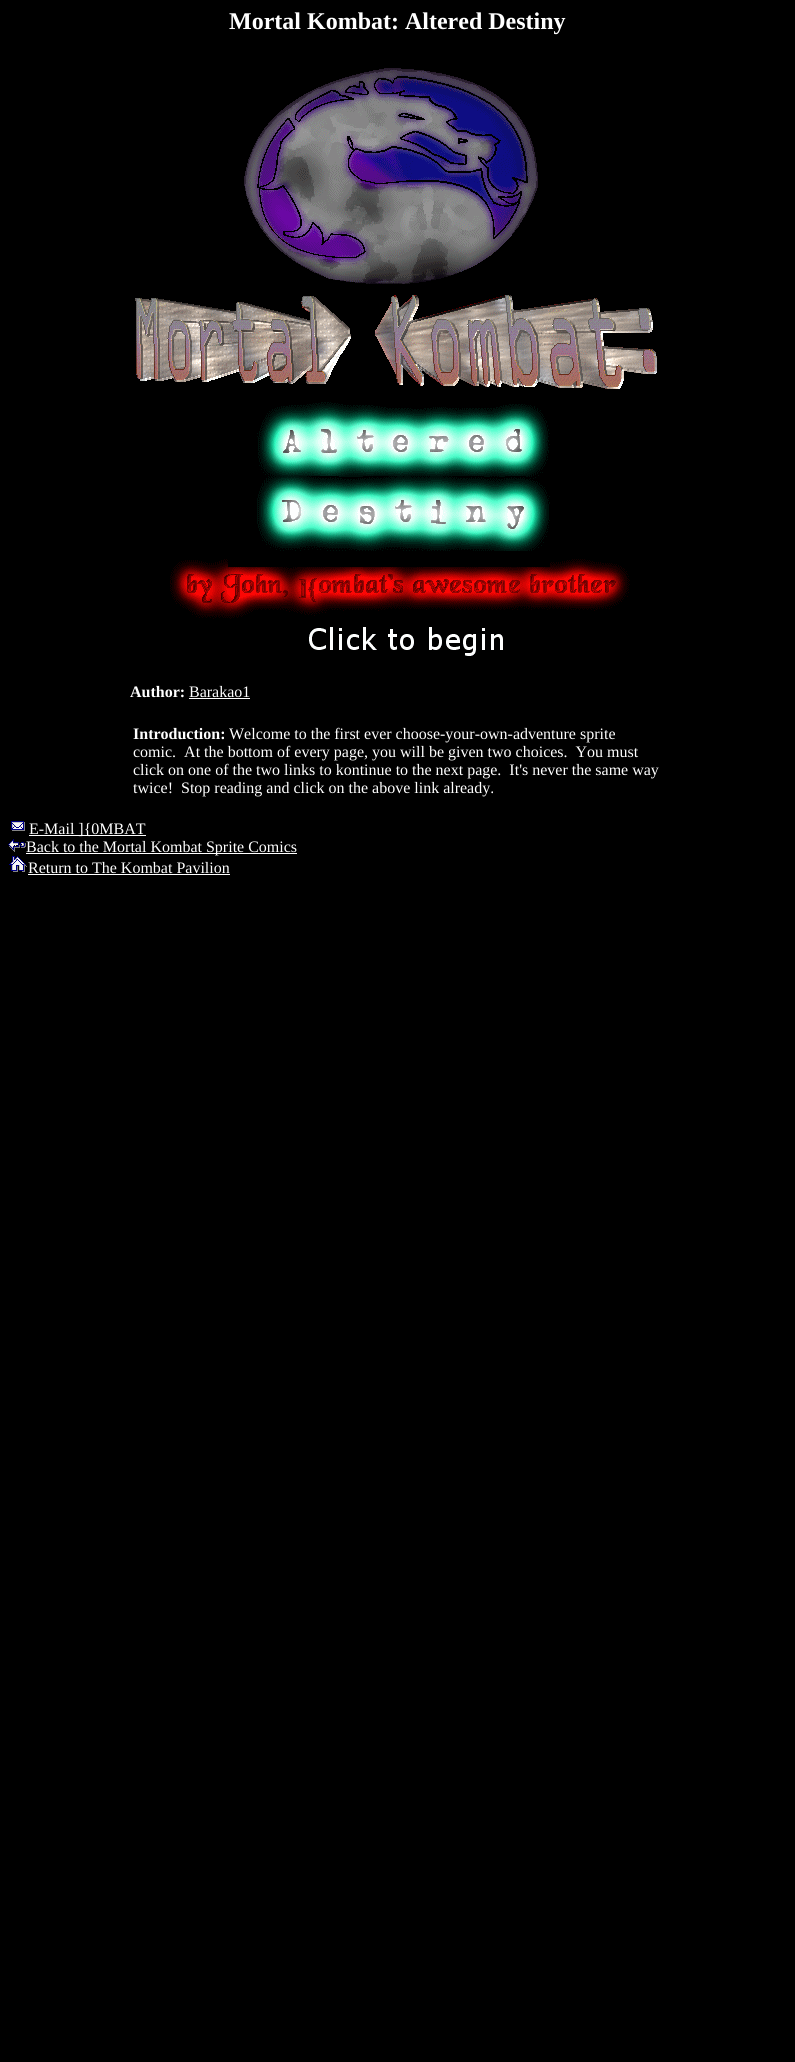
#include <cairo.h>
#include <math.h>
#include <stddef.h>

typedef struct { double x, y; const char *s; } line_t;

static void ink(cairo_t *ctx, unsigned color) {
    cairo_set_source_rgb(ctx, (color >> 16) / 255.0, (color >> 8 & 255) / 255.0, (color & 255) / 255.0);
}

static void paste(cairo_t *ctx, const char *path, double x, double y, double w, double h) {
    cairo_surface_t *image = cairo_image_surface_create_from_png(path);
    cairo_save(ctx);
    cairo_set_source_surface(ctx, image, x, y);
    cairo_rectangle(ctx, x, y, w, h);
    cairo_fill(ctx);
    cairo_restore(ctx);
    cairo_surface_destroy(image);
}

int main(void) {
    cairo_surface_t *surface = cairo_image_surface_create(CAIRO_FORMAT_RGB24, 795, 2062);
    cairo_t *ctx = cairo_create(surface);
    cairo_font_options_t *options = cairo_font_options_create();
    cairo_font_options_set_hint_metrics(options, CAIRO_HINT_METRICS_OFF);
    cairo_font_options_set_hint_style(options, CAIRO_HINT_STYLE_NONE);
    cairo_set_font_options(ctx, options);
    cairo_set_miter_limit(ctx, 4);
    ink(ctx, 0x000000);
    cairo_paint(ctx);
    cairo_select_font_face(ctx, "Liberation Serif", CAIRO_FONT_SLANT_NORMAL, CAIRO_FONT_WEIGHT_BOLD);
    cairo_set_font_size(ctx, 24);
    ink(ctx, 0xFFFFFF);
    cairo_move_to(ctx, 229, 29);
    cairo_show_text(ctx, "Mortal Kombat: Altered Destiny");
    paste(ctx, "media/1.png", 135, 68, 522, 588);
    cairo_set_font_size(ctx, 16);
    cairo_move_to(ctx, 130, 697);
    cairo_show_text(ctx, "Author:");
    cairo_select_font_face(ctx, "Liberation Serif", CAIRO_FONT_SLANT_NORMAL, CAIRO_FONT_WEIGHT_NORMAL);
    cairo_move_to(ctx, 189, 697);
    cairo_show_text(ctx, "Barakao1");
    cairo_rectangle(ctx, 189, 698, 61, 1);
    cairo_fill(ctx);
    cairo_select_font_face(ctx, "Liberation Serif", CAIRO_FONT_SLANT_NORMAL, CAIRO_FONT_WEIGHT_BOLD);
    cairo_move_to(ctx, 133, 739);
    cairo_show_text(ctx, "Introduction:");
    cairo_select_font_face(ctx, "Liberation Serif", CAIRO_FONT_SLANT_NORMAL, CAIRO_FONT_WEIGHT_NORMAL);
    {
        static const line_t items[] = {
            {229, 739, "Welcome to the first ever choose-your-own-adventure sprite"},
            {133, 757, "comic.  At the bottom of every page, you will be given two choices.  You must"},
            {133, 775, "click on one of the two links to kontinue to the next page.  It's never the same way"},
            {133, 793, "twice!  Stop reading and click on the above link already."},
        };
        for (size_t i = 0; i < sizeof items / sizeof *items; i++) {
            cairo_move_to(ctx, items[i].x, items[i].y);
            cairo_show_text(ctx, items[i].s);
        }
    }
    paste(ctx, "media/2.png", 11, 821, 14, 10);
    cairo_rectangle(ctx, 29, 835, 117, 1);
    cairo_fill(ctx);
    cairo_move_to(ctx, 29, 834);
    cairo_show_text(ctx, "E-Mail ]{0MBAT");
    paste(ctx, "media/3.png", 8, 839, 18, 13);
    cairo_rectangle(ctx, 26, 853, 271, 1);
    cairo_fill(ctx);
    cairo_move_to(ctx, 26, 852);
    cairo_show_text(ctx, "Back to the Mortal Kombat Sprite Comics");
    paste(ctx, "media/4.png", 9, 856, 18, 16);
    cairo_move_to(ctx, 28, 873);
    cairo_show_text(ctx, "Return to The Kombat Pavilion");
    cairo_rectangle(ctx, 28, 874, 202, 1);
    cairo_fill(ctx);
    cairo_surface_write_to_png(surface, "image.png");
    cairo_font_options_destroy(options);
    cairo_destroy(ctx);
    cairo_surface_destroy(surface);
    return 0;
}
